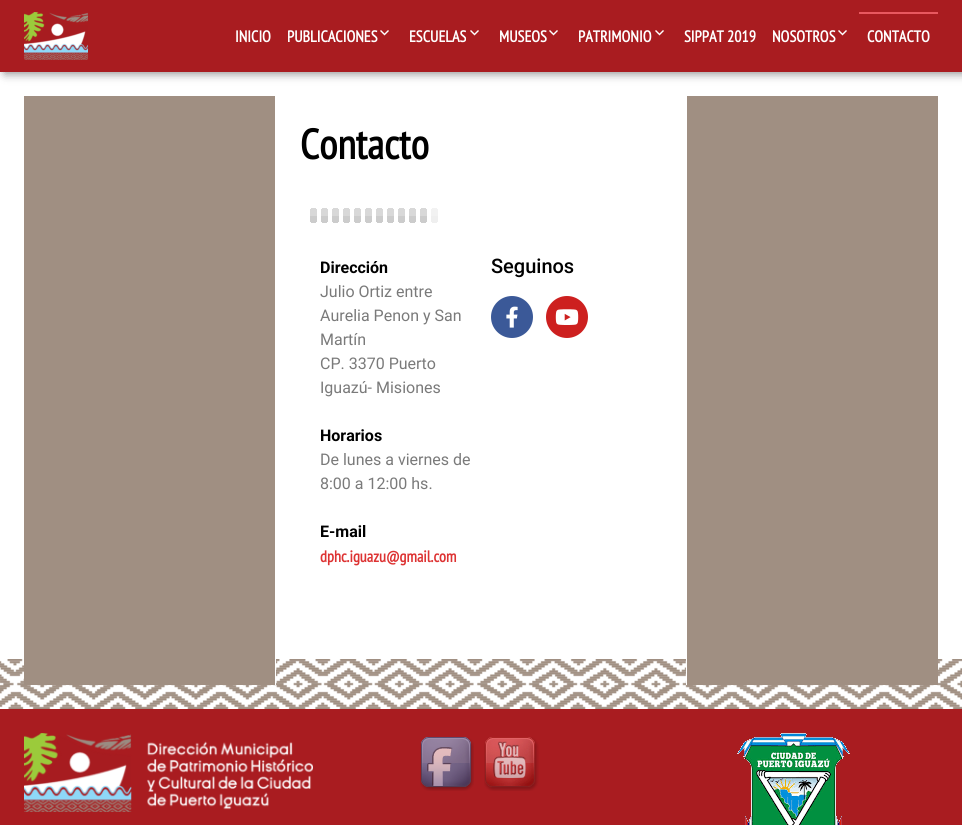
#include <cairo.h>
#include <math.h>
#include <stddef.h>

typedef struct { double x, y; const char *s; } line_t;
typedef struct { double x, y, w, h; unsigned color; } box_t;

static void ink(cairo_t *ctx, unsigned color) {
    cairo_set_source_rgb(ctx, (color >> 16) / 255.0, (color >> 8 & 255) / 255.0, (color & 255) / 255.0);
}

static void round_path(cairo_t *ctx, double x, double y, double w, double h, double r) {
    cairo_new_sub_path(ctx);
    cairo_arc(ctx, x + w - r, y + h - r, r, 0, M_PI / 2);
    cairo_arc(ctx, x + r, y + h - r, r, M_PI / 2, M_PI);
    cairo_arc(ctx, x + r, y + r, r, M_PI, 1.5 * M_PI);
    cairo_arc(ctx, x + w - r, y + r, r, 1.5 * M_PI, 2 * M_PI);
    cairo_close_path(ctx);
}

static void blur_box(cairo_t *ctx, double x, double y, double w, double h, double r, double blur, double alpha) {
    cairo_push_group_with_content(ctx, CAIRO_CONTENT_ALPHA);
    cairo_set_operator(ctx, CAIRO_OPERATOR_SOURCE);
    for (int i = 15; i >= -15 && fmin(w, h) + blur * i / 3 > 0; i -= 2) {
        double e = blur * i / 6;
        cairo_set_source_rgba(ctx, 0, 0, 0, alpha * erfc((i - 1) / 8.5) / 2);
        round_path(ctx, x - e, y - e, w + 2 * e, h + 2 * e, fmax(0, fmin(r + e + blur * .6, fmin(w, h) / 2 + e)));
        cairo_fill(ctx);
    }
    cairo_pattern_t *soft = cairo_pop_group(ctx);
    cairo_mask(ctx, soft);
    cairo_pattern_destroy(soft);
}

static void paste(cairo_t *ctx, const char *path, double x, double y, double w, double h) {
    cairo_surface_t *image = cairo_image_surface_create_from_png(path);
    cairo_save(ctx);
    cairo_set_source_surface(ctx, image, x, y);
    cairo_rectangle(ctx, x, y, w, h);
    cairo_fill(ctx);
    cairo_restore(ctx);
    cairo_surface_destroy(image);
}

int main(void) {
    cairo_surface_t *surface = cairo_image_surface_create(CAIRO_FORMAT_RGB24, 962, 825);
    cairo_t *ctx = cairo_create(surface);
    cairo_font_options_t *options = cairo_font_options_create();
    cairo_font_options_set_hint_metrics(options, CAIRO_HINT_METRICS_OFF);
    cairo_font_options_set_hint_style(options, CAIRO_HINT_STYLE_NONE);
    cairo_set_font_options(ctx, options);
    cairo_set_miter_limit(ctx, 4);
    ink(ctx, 0xFFFFFF);
    cairo_paint(ctx);
    ink(ctx, 0x000000);
    blur_box(ctx, 5, 1, 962, 72, 0, 5, 0.5);
    ink(ctx, 0xA91C20);
    cairo_rectangle(ctx, 0, 0, 962, 72);
    cairo_fill(ctx);
    paste(ctx, "media/1.png", 24, 12, 64, 48);
    cairo_select_font_face(ctx, "PT Sans Narrow", CAIRO_FONT_SLANT_NORMAL, CAIRO_FONT_WEIGHT_BOLD);
    cairo_set_font_size(ctx, 16);
    ink(ctx, 0xFFFFFF);
    cairo_move_to(ctx, 235, 42);
    cairo_show_text(ctx, "INICIO");
    cairo_move_to(ctx, 287, 42);
    cairo_show_text(ctx, "PUBLICACIONES");
    paste(ctx, "media/2.png", 380, 30, 9, 6);
    cairo_move_to(ctx, 409, 42);
    cairo_show_text(ctx, "ESCUELAS");
    paste(ctx, "media/2.png", 470, 30, 9, 6);
    cairo_move_to(ctx, 499, 42);
    cairo_show_text(ctx, "MUSEOS");
    paste(ctx, "media/2.png", 549, 30, 9, 6);
    cairo_move_to(ctx, 578, 42);
    cairo_show_text(ctx, "PATRIMONIO");
    paste(ctx, "media/2.png", 655, 30, 9, 6);
    cairo_move_to(ctx, 684, 42);
    cairo_show_text(ctx, "SIPPAT 2019");
    cairo_move_to(ctx, 772, 42);
    cairo_show_text(ctx, "NOSOTROS");
    paste(ctx, "media/2.png", 838, 30, 9, 6);
    ink(ctx, 0xE8585F);
    cairo_rectangle(ctx, 859, 12, 79, 2);
    cairo_fill(ctx);
    ink(ctx, 0xFFFFFF);
    cairo_move_to(ctx, 867, 42);
    cairo_show_text(ctx, "CONTACTO");
    paste(ctx, "media/3.png", 0, 659, 962, 50);
    ink(ctx, 0xA08F82);
    cairo_rectangle(ctx, 24, 96, 251, 589);
    cairo_fill(ctx);
    ink(ctx, 0xFFFFFF);
    cairo_rectangle(ctx, 275, 659, 1, 26);
    cairo_fill(ctx);
    cairo_set_font_size(ctx, 42);
    ink(ctx, 0x000000);
    cairo_move_to(ctx, 300, 159);
    cairo_show_text(ctx, "Contacto");
    paste(ctx, "media/4.png", 310, 208, 128, 15);
    cairo_select_font_face(ctx, "Roboto", CAIRO_FONT_SLANT_NORMAL, CAIRO_FONT_WEIGHT_BOLD);
    cairo_set_font_size(ctx, 16);
    cairo_move_to(ctx, 320, 273);
    cairo_show_text(ctx, "Dirección");
    cairo_select_font_face(ctx, "Roboto", CAIRO_FONT_SLANT_NORMAL, CAIRO_FONT_WEIGHT_NORMAL);
    ink(ctx, 0x7A7A7A);
    {
        static const line_t items[] = {
            {320, 297, "Julio Ortiz entre"},
            {320, 321, "Aurelia Penon y San"},
            {320, 345, "Martín"},
            {320, 369, "CP. 3370 Puerto"},
            {320, 393, "Iguazú- Misiones"},
        };
        for (size_t i = 0; i < sizeof items / sizeof *items; i++) {
            cairo_move_to(ctx, items[i].x, items[i].y);
            cairo_show_text(ctx, items[i].s);
        }
    }
    cairo_select_font_face(ctx, "Roboto", CAIRO_FONT_SLANT_NORMAL, CAIRO_FONT_WEIGHT_BOLD);
    ink(ctx, 0x000000);
    cairo_move_to(ctx, 320, 441);
    cairo_show_text(ctx, "Horarios");
    cairo_select_font_face(ctx, "Roboto", CAIRO_FONT_SLANT_NORMAL, CAIRO_FONT_WEIGHT_NORMAL);
    ink(ctx, 0x7A7A7A);
    cairo_move_to(ctx, 320, 465);
    cairo_show_text(ctx, "De lunes a viernes de");
    cairo_move_to(ctx, 320, 489);
    cairo_show_text(ctx, "8:00 a 12:00 hs.");
    cairo_select_font_face(ctx, "Roboto", CAIRO_FONT_SLANT_NORMAL, CAIRO_FONT_WEIGHT_BOLD);
    ink(ctx, 0x000000);
    cairo_move_to(ctx, 320, 537);
    cairo_show_text(ctx, "E-mail");
    cairo_select_font_face(ctx, "PT Sans Narrow", CAIRO_FONT_SLANT_NORMAL, CAIRO_FONT_WEIGHT_BOLD);
    ink(ctx, 0xDD3333);
    cairo_move_to(ctx, 320, 562);
    cairo_show_text(ctx, "dphc.iguazu@gmail.com");
    cairo_select_font_face(ctx, "Roboto Medium", CAIRO_FONT_SLANT_NORMAL, CAIRO_FONT_WEIGHT_NORMAL);
    cairo_set_font_size(ctx, 20);
    ink(ctx, 0x000000);
    cairo_move_to(ctx, 491, 273);
    cairo_show_text(ctx, "Seguinos");
    ink(ctx, 0x3B5998);
    cairo_new_path(ctx);
    cairo_arc(ctx, 512, 317, 21, 0, 2 * M_PI);
    cairo_fill(ctx);
    paste(ctx, "media/5.png", 506, 306, 12, 22);
    ink(ctx, 0xCD201F);
    cairo_arc(ctx, 567, 317, 21, 0, 2 * M_PI);
    cairo_fill(ctx);
    paste(ctx, "media/6.png", 555, 309, 24, 16);
    {
        static const box_t items[] = {
            {687, 96, 251, 589, 0xA08F82},
            {686, 659, 1, 26, 0xFFFFFF},
            {0, 709, 962, 116, 0xA91C20},
        };
        for (size_t i = 0; i < sizeof items / sizeof *items; i++) {
            ink(ctx, items[i].color);
            cairo_rectangle(ctx, items[i].x, items[i].y, items[i].w, items[i].h);
            cairo_fill(ctx);
        }
    }
    paste(ctx, "media/7.png", 24, 733, 289, 79);
    paste(ctx, "media/8.png", 420, 737, 54, 54);
    paste(ctx, "media/9.png", 484, 737, 55, 54);
    paste(ctx, "media/10.png", 737, 733, 113, 92);
    cairo_surface_write_to_png(surface, "image.png");
    cairo_font_options_destroy(options);
    cairo_destroy(ctx);
    cairo_surface_destroy(surface);
    return 0;
}
